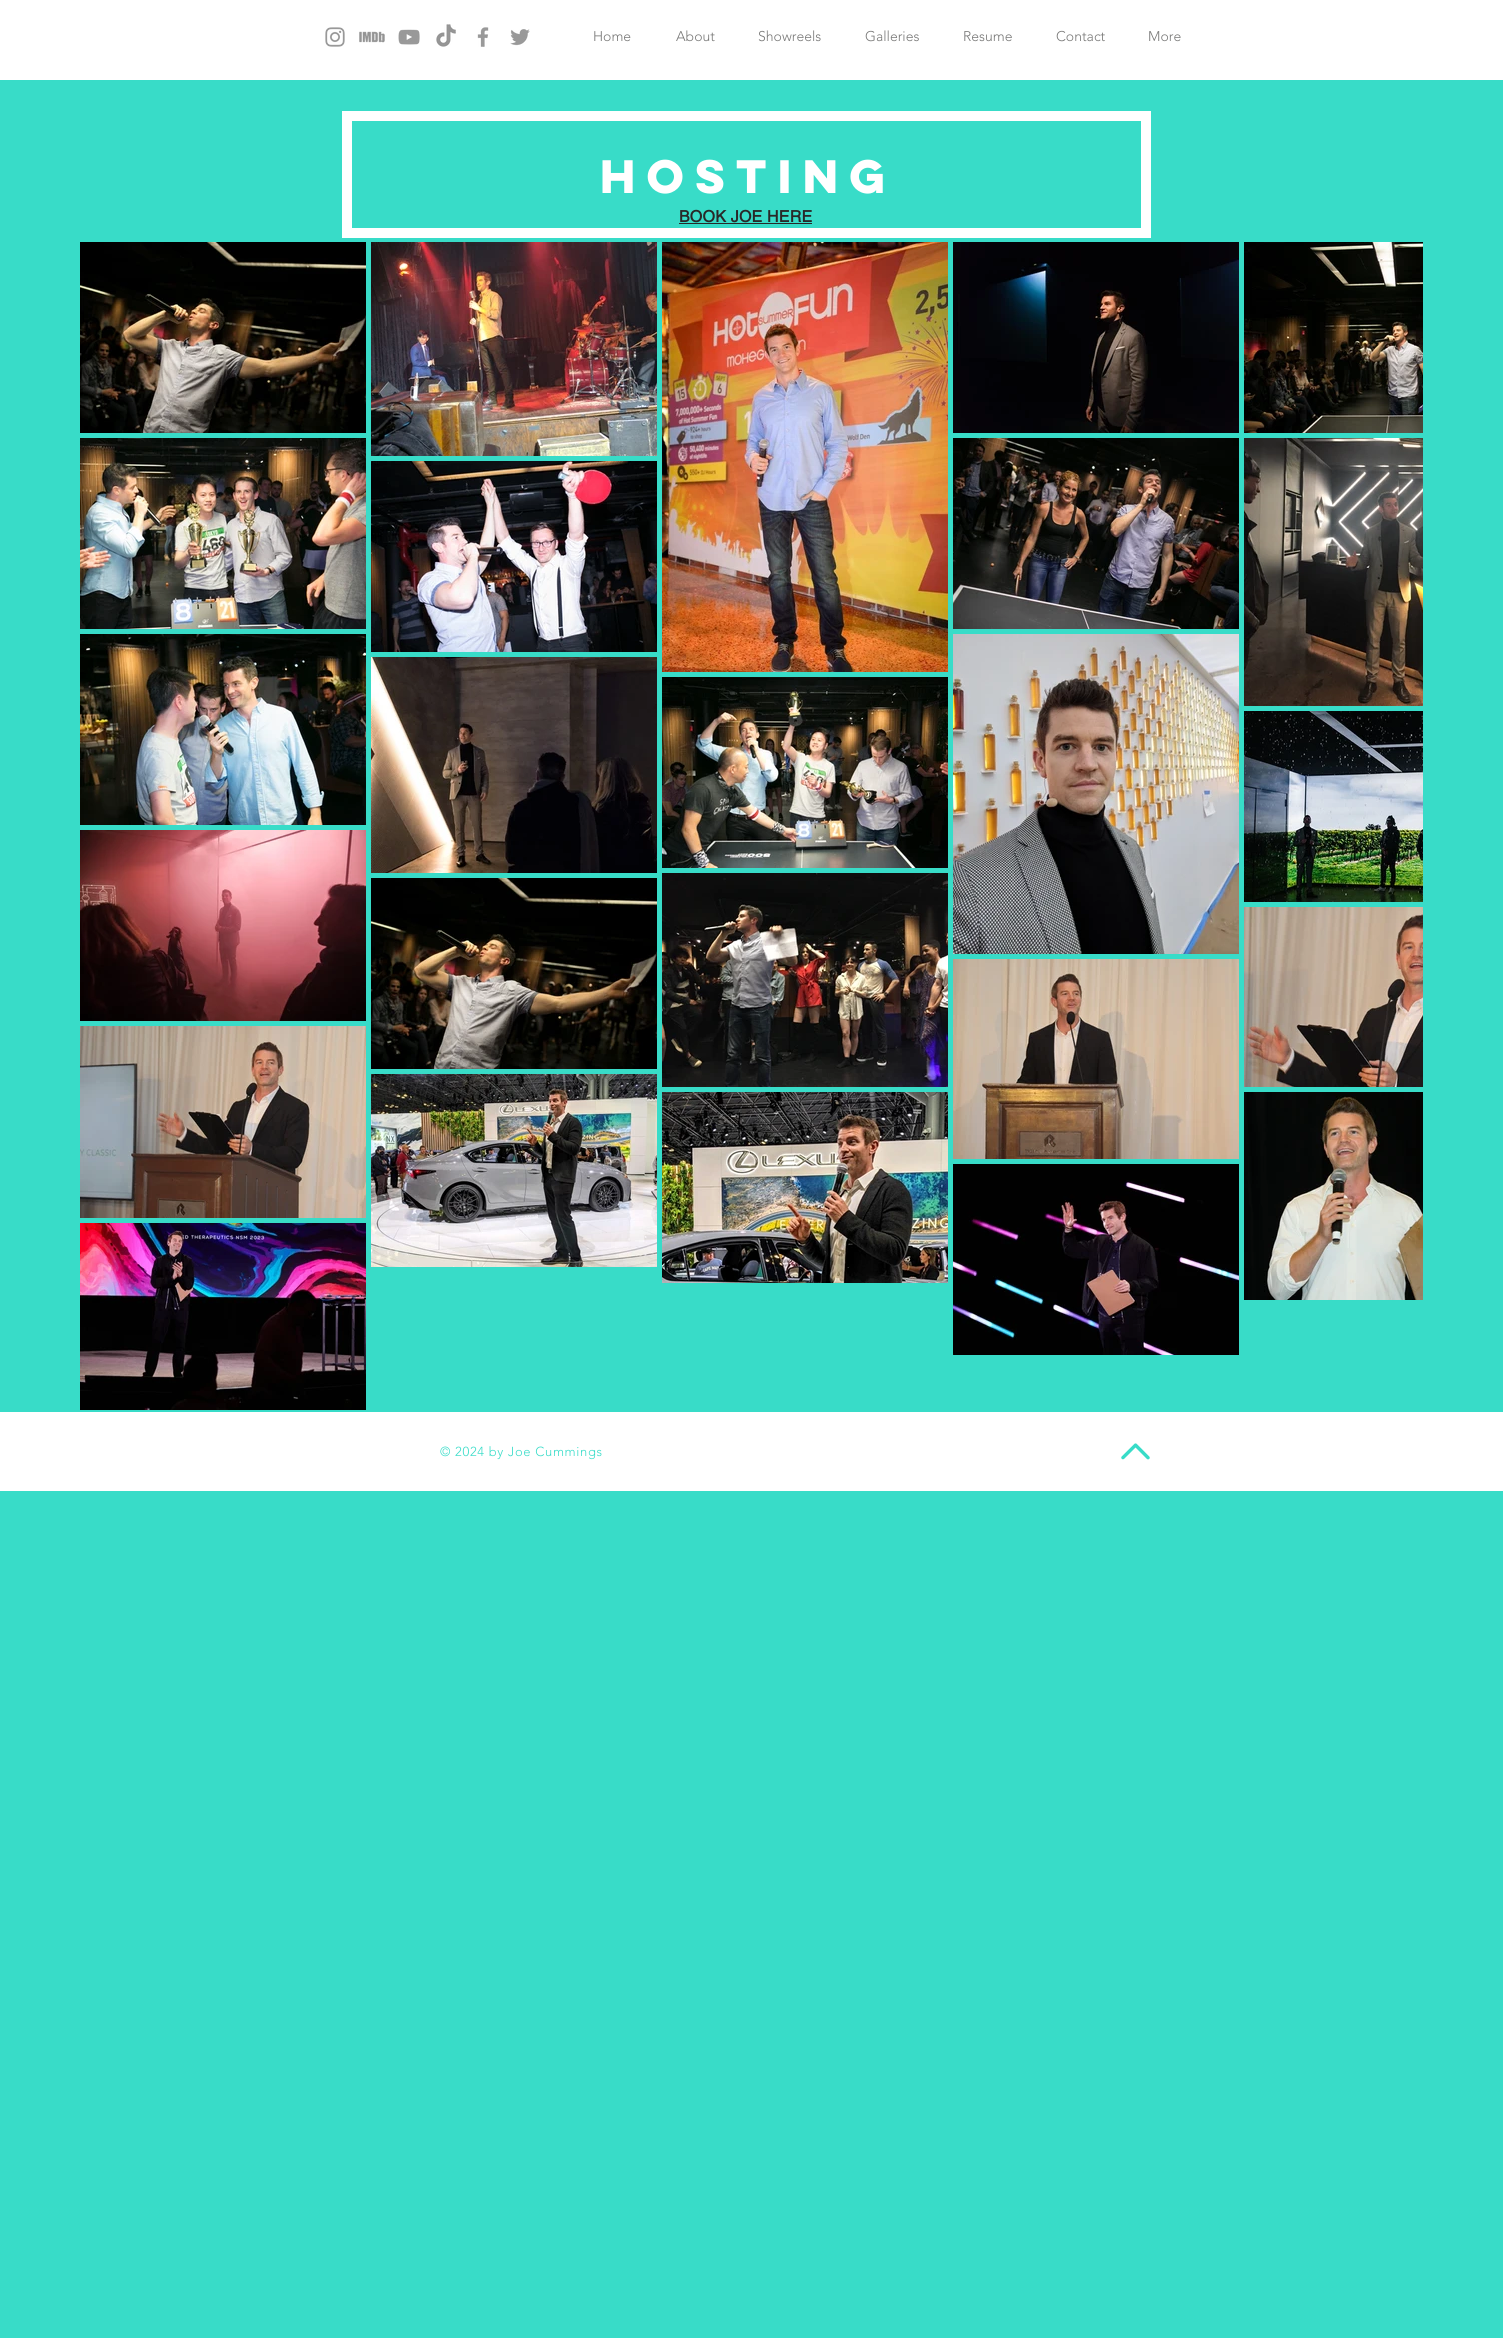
#include <cairo.h>
#include <math.h>
#include <stddef.h>

typedef struct { double x, y; const char *s; } line_t;

static void ink(cairo_t *ctx, unsigned color) {
    cairo_set_source_rgb(ctx, (color >> 16) / 255.0, (color >> 8 & 255) / 255.0, (color & 255) / 255.0);
}

static void write_spaced(cairo_t *ctx, double x, double y, const char *s, double letter, double word) {
    cairo_move_to(ctx, x, y);
    while (*s) {
        char ch[5] = {0};
        int n = 0;
        do ch[n++] = *s++; while ((*s & 0xC0) == 0x80);
        cairo_show_text(ctx, ch);
        cairo_rel_move_to(ctx, letter + word * (*ch == ' '), 0);
    }
}

static void paste(cairo_t *ctx, const char *path, double x, double y, double w, double h) {
    cairo_surface_t *image = cairo_image_surface_create_from_png(path);
    cairo_save(ctx);
    cairo_set_source_surface(ctx, image, x, y);
    cairo_rectangle(ctx, x, y, w, h);
    cairo_fill(ctx);
    cairo_restore(ctx);
    cairo_surface_destroy(image);
}

int main(void) {
    cairo_surface_t *surface = cairo_image_surface_create(CAIRO_FORMAT_RGB24, 1503, 2338);
    cairo_t *ctx = cairo_create(surface);
    cairo_font_options_t *options = cairo_font_options_create();
    cairo_font_options_set_hint_metrics(options, CAIRO_HINT_METRICS_OFF);
    cairo_font_options_set_hint_style(options, CAIRO_HINT_STYLE_NONE);
    cairo_set_font_options(ctx, options);
    cairo_set_miter_limit(ctx, 4);
    ink(ctx, 0x38DCC8);
    cairo_paint(ctx);
    ink(ctx, 0xFFFFFF);
    cairo_rectangle(ctx, 0, 0, 1503, 80);
    cairo_fill(ctx);
    paste(ctx, "media/1.png", 325, 27, 20, 20);
    paste(ctx, "media/2.png", 359, 31, 26, 12);
    paste(ctx, "media/3.png", 398, 29, 22, 16);
    paste(ctx, "media/4.png", 436, 24, 20, 23);
    paste(ctx, "media/5.png", 477, 27, 12, 20);
    paste(ctx, "media/6.png", 510, 29, 20, 17);
    cairo_select_font_face(ctx, "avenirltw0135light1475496 Light", CAIRO_FONT_SLANT_NORMAL, CAIRO_FONT_WEIGHT_NORMAL);
    cairo_set_font_size(ctx, 14);
    ink(ctx, 0x787877);
    {
        static const line_t items[] = {
            {593, 41, "Home"},
            {676, 41, "About"},
            {758, 41, "Showreels"},
            {865, 41, "Galleries"},
            {963, 41, "Resume"},
            {1056, 41, "Contact"},
            {1148, 41, "More"},
        };
        for (size_t i = 0; i < sizeof items / sizeof *items; i++) {
            cairo_move_to(ctx, items[i].x, items[i].y);
            cairo_show_text(ctx, items[i].s);
        }
    }
    cairo_rectangle(ctx, 347, 116, 799, 117);
    ink(ctx, 0xFFFFFF);
    cairo_set_line_width(ctx, 10);
    cairo_stroke(ctx);
    cairo_select_font_face(ctx, "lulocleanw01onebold", CAIRO_FONT_SLANT_NORMAL, CAIRO_FONT_WEIGHT_BOLD);
    cairo_set_font_size(ctx, 42);
    write_spaced(ctx, 600, 193, "Hosting", 2, 0);
    cairo_select_font_face(ctx, "helvetica", CAIRO_FONT_SLANT_NORMAL, CAIRO_FONT_WEIGHT_BOLD);
    cairo_set_font_size(ctx, 16);
    ink(ctx, 0x282828);
    write_spaced(ctx, 679, 222, "BOOK JOE HERE", 0.2, 0);
    cairo_rectangle(ctx, 679, 223, 133, 1);
    cairo_fill(ctx);
    paste(ctx, "media/7.png", 80, 242, 286, 191);
    paste(ctx, "media/8.png", 371, 242, 286, 214);
    paste(ctx, "media/9.png", 662, 242, 286, 430);
    paste(ctx, "media/10.png", 953, 242, 286, 191);
    paste(ctx, "media/11.png", 1244, 242, 179, 191);
    paste(ctx, "media/12.png", 80, 438, 286, 191);
    paste(ctx, "media/13.png", 371, 461, 286, 191);
    paste(ctx, "media/14.png", 953, 438, 286, 191);
    paste(ctx, "media/15.png", 1244, 438, 179, 268);
    paste(ctx, "media/16.png", 80, 634, 286, 191);
    paste(ctx, "media/17.png", 371, 657, 286, 216);
    paste(ctx, "media/18.png", 662, 677, 286, 191);
    paste(ctx, "media/19.png", 953, 634, 286, 320);
    paste(ctx, "media/20.png", 1244, 711, 179, 191);
    paste(ctx, "media/21.png", 80, 830, 286, 191);
    paste(ctx, "media/7.png", 371, 878, 286, 191);
    paste(ctx, "media/22.png", 662, 873, 286, 214);
    paste(ctx, "media/23.png", 953, 959, 286, 200);
    paste(ctx, "media/24.png", 1244, 907, 179, 180);
    paste(ctx, "media/25.png", 80, 1026, 286, 192);
    paste(ctx, "media/26.png", 371, 1074, 286, 193);
    paste(ctx, "media/27.png", 662, 1092, 286, 191);
    paste(ctx, "media/28.png", 953, 1164, 286, 191);
    paste(ctx, "media/29.png", 1244, 1092, 179, 208);
    paste(ctx, "media/30.png", 80, 1223, 286, 187);
    ink(ctx, 0xFFFFFF);
    cairo_rectangle(ctx, 0, 1412, 1503, 79);
    cairo_fill(ctx);
    cairo_select_font_face(ctx, "avenirltw0135light1475496 Light", CAIRO_FONT_SLANT_NORMAL, CAIRO_FONT_WEIGHT_NORMAL);
    cairo_set_font_size(ctx, 13);
    ink(ctx, 0x38DCC8);
    write_spaced(ctx, 440, 1456, "© 2024 by Joe Cummings", 0.65, 0);
    paste(ctx, "media/31.png", 1121, 1443, 29, 17);
    cairo_surface_write_to_png(surface, "image.png");
    cairo_font_options_destroy(options);
    cairo_destroy(ctx);
    cairo_surface_destroy(surface);
    return 0;
}
